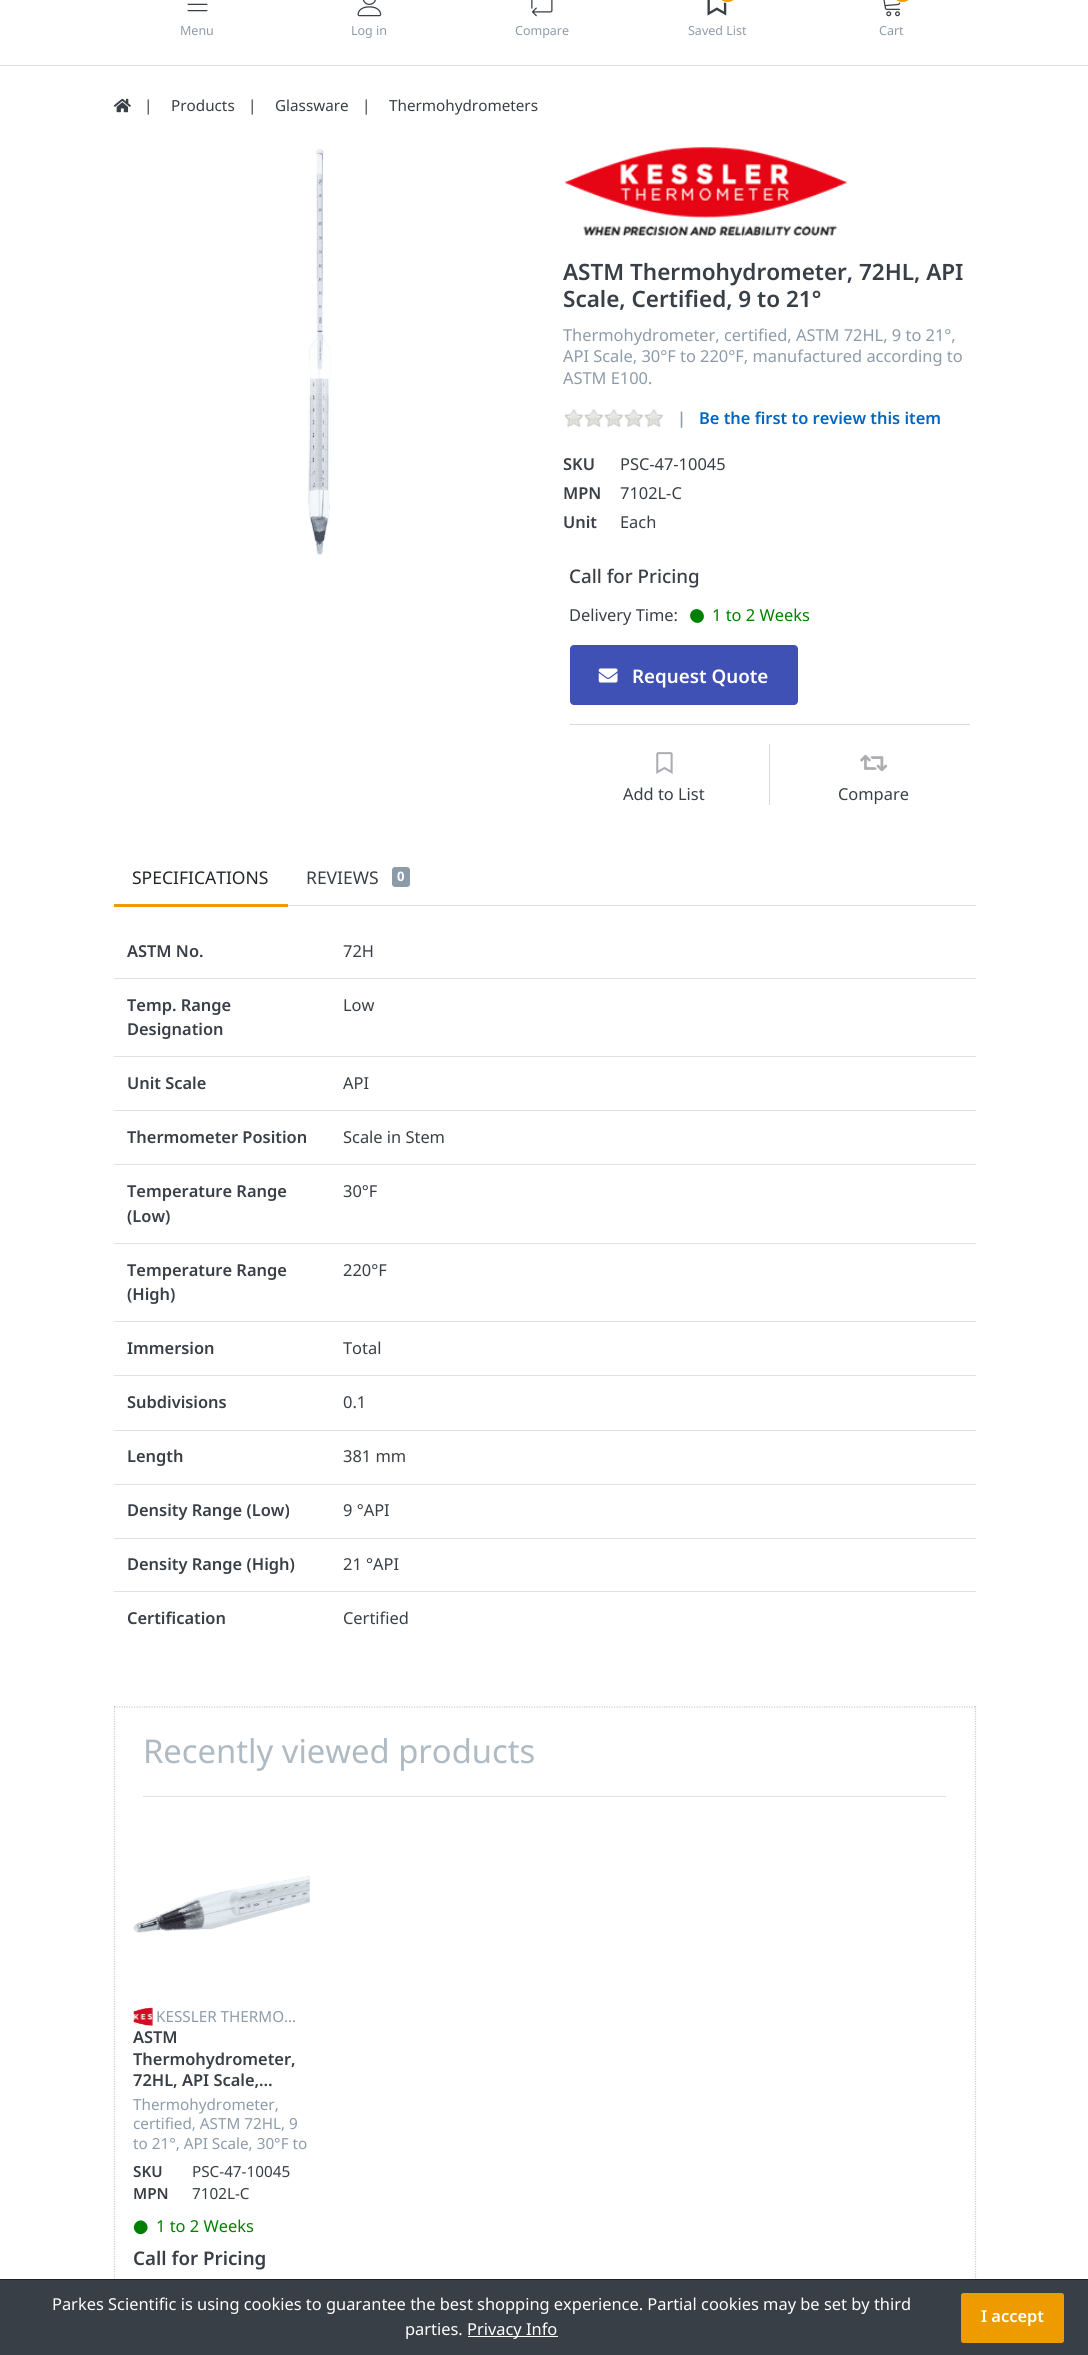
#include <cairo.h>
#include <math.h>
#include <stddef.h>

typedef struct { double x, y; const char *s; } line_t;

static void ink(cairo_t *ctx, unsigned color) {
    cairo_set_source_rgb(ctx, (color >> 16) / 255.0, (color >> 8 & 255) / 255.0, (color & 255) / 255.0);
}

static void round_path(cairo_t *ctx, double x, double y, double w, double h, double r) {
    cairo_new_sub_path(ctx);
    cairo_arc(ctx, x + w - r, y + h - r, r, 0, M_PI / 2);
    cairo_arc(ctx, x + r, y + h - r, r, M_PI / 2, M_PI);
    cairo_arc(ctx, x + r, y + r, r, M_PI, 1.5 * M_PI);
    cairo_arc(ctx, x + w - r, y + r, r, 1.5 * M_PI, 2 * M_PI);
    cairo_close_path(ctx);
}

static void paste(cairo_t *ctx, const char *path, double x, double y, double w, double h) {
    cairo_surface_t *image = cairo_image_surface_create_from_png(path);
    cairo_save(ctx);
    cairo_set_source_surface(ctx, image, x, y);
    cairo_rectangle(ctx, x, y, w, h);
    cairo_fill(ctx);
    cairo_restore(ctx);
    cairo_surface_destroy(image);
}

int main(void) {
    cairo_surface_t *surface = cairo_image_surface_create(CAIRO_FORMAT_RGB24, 1088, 2355);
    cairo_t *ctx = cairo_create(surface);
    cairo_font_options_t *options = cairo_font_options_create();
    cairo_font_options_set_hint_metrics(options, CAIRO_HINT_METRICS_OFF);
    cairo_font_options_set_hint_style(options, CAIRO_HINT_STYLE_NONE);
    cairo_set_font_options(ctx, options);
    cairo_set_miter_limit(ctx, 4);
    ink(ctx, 0xFFFFFF);
    cairo_paint(ctx);
    ink(ctx, 0xE0E0E0);
    cairo_rectangle(ctx, 0, 65, 1088, 1);
    cairo_fill(ctx);
    paste(ctx, "media/1.png", 187, 3, 21, 9);
    cairo_select_font_face(ctx, "Noto Sans", CAIRO_FONT_SLANT_NORMAL, CAIRO_FONT_WEIGHT_NORMAL);
    cairo_set_font_size(ctx, 12.5);
    ink(ctx, 0x8D9BA9);
    cairo_move_to(ctx, 180, 35);
    cairo_show_text(ctx, "Menu");
    paste(ctx, "media/2.png", 357, 0, 25, 17);
    cairo_move_to(ctx, 351, 35);
    cairo_show_text(ctx, "Log in");
    paste(ctx, "media/3.png", 531, 0, 22, 17);
    cairo_move_to(ctx, 515, 35);
    cairo_show_text(ctx, "Compare");
    paste(ctx, "media/4.png", 707, 0, 20, 16);
    ink(ctx, 0xEE9B00);
    round_path(ctx, 716.5, -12.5, 22, 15, 11);
    cairo_fill_preserve(ctx);
    ink(ctx, 0xFFFFFF);
    cairo_set_line_width(ctx, 1);
    cairo_stroke(ctx);
    ink(ctx, 0x8D9BA9);
    cairo_move_to(ctx, 688, 35);
    cairo_show_text(ctx, "Saved List");
    paste(ctx, "media/5.png", 883, 0, 18, 17);
    ink(ctx, 0xEE9B00);
    round_path(ctx, 891.5, -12.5, 22, 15, 11);
    cairo_fill_preserve(ctx);
    ink(ctx, 0xFFFFFF);
    cairo_stroke(ctx);
    ink(ctx, 0x8D9BA9);
    cairo_move_to(ctx, 879, 35);
    cairo_show_text(ctx, "Cart");
    paste(ctx, "media/6.png", 113, 98, 18, 15);
    cairo_set_font_size(ctx, 15.25);
    ink(ctx, 0x393F46);
    {
        static const line_t items[] = {
            {144, 111, "|"},
            {171, 111, "Products"},
            {248, 111, "|"},
            {275, 111, "Glassware"},
            {362, 111, "|"},
            {389, 111, "Thermohydrometers"},
        };
        for (size_t i = 0; i < sizeof items / sizeof *items; i++) {
            cairo_move_to(ctx, items[i].x, items[i].y);
            cairo_show_text(ctx, items[i].s);
        }
    }
    paste(ctx, "media/7.png", 308, 148, 23, 408);
    paste(ctx, "media/8.png", 564, 147, 284, 89);
    cairo_select_font_face(ctx, "Noto Sans SemiBold", CAIRO_FONT_SLANT_NORMAL, CAIRO_FONT_WEIGHT_NORMAL);
    cairo_set_font_size(ctx, 22.5);
    cairo_move_to(ctx, 563, 280);
    cairo_show_text(ctx, "ASTM Thermohydrometer, 72HL, API");
    cairo_move_to(ctx, 563, 307);
    cairo_show_text(ctx, "Scale, Certified, 9 to 21°");
    cairo_select_font_face(ctx, "Noto Sans", CAIRO_FONT_SLANT_NORMAL, CAIRO_FONT_WEIGHT_NORMAL);
    cairo_set_font_size(ctx, 16.4);
    ink(ctx, 0x8D9BA9);
    {
        static const line_t items[] = {
            {563, 341, "Thermohydrometer, certified, ASTM 72HL, 9 to 21°,"},
            {563, 362, "API Scale, 30°F to 220°F, manufactured according to"},
            {563, 384, "ASTM E100."},
        };
        for (size_t i = 0; i < sizeof items / sizeof *items; i++) {
            cairo_move_to(ctx, items[i].x, items[i].y);
            cairo_show_text(ctx, items[i].s);
        }
    }
    paste(ctx, "media/9.png", 564, 408, 100, 20);
    cairo_select_font_face(ctx, "Noto Sans SemiBold", CAIRO_FONT_SLANT_NORMAL, CAIRO_FONT_WEIGHT_NORMAL);
    cairo_move_to(ctx, 677, 424);
    cairo_show_text(ctx, "|");
    ink(ctx, 0x0066C0);
    cairo_move_to(ctx, 699, 424);
    cairo_show_text(ctx, "Be the first to review this item");
    ink(ctx, 0x393F46);
    cairo_move_to(ctx, 563, 470);
    cairo_show_text(ctx, "SKU");
    cairo_select_font_face(ctx, "Noto Sans", CAIRO_FONT_SLANT_NORMAL, CAIRO_FONT_WEIGHT_NORMAL);
    cairo_move_to(ctx, 620, 470);
    cairo_show_text(ctx, "PSC-47-10045");
    cairo_select_font_face(ctx, "Noto Sans SemiBold", CAIRO_FONT_SLANT_NORMAL, CAIRO_FONT_WEIGHT_NORMAL);
    cairo_move_to(ctx, 563, 499);
    cairo_show_text(ctx, "MPN");
    cairo_select_font_face(ctx, "Noto Sans", CAIRO_FONT_SLANT_NORMAL, CAIRO_FONT_WEIGHT_NORMAL);
    cairo_move_to(ctx, 620, 499);
    cairo_show_text(ctx, "7102L-C");
    cairo_select_font_face(ctx, "Noto Sans SemiBold", CAIRO_FONT_SLANT_NORMAL, CAIRO_FONT_WEIGHT_NORMAL);
    cairo_move_to(ctx, 563, 528);
    cairo_show_text(ctx, "Unit");
    cairo_select_font_face(ctx, "Noto Sans", CAIRO_FONT_SLANT_NORMAL, CAIRO_FONT_WEIGHT_NORMAL);
    cairo_move_to(ctx, 620, 528);
    cairo_show_text(ctx, "Each");
    cairo_select_font_face(ctx, "Noto Sans Medium", CAIRO_FONT_SLANT_NORMAL, CAIRO_FONT_WEIGHT_NORMAL);
    cairo_set_font_size(ctx, 18.75);
    cairo_move_to(ctx, 569, 583);
    cairo_show_text(ctx, "Call for Pricing");
    cairo_select_font_face(ctx, "Noto Sans", CAIRO_FONT_SLANT_NORMAL, CAIRO_FONT_WEIGHT_NORMAL);
    cairo_set_font_size(ctx, 16.4);
    cairo_move_to(ctx, 569, 621);
    cairo_show_text(ctx, "Delivery Time:");
    ink(ctx, 0x008000);
    cairo_new_path(ctx);
    cairo_move_to(ctx, 692, 611);
    cairo_curve_to(ctx, 698.5, 605, 708, 614.5, 702, 621);
    cairo_curve_to(ctx, 695.5, 627, 686, 617.5, 692, 611);
    cairo_close_path(ctx);
    cairo_fill(ctx);
    cairo_move_to(ctx, 712, 621);
    cairo_show_text(ctx, "1 to 2 Weeks");
    ink(ctx, 0x3F51B5);
    round_path(ctx, 570.5, 645.5, 227, 59, 3.5);
    cairo_fill_preserve(ctx);
    cairo_stroke(ctx);
    paste(ctx, "media/10.png", 598, 668, 20, 15);
    cairo_select_font_face(ctx, "Noto Sans SemiBold", CAIRO_FONT_SLANT_NORMAL, CAIRO_FONT_WEIGHT_NORMAL);
    cairo_set_font_size(ctx, 18.75);
    ink(ctx, 0xFFFFFF);
    cairo_move_to(ctx, 632, 683);
    cairo_show_text(ctx, "Request Quote");
    ink(ctx, 0xD9D9D9);
    cairo_rectangle(ctx, 570, 724, 400, 1);
    cairo_fill(ctx);
    cairo_rectangle(ctx, 769, 744, 1, 61);
    cairo_fill(ctx);
    paste(ctx, "media/11.png", 656, 752, 17, 22);
    cairo_select_font_face(ctx, "Noto Sans", CAIRO_FONT_SLANT_NORMAL, CAIRO_FONT_WEIGHT_NORMAL);
    cairo_set_font_size(ctx, 16.4);
    ink(ctx, 0x393F46);
    cairo_move_to(ctx, 623, 800);
    cairo_show_text(ctx, "Add to List");
    paste(ctx, "media/12.png", 860, 754, 28, 18);
    cairo_move_to(ctx, 838, 800);
    cairo_show_text(ctx, "Compare");
    ink(ctx, 0xDEE2E6);
    cairo_rectangle(ctx, 288, 905, 688, 1);
    cairo_fill(ctx);
    cairo_set_font_size(ctx, 17.5);
    ink(ctx, 0x22262A);
    cairo_move_to(ctx, 132, 884);
    cairo_show_text(ctx, "SPECIFICATIONS");
    ink(ctx, 0xEE9B00);
    cairo_rectangle(ctx, 114, 904, 174, 3);
    cairo_fill(ctx);
    ink(ctx, 0x393F46);
    cairo_move_to(ctx, 306, 884);
    cairo_show_text(ctx, "REVIEWS");
    ink(ctx, 0x8D9BA9);
    round_path(ctx, 391.5, 866.5, 19, 21, 3.5);
    cairo_fill_preserve(ctx);
    ink(ctx, 0xFFFFFF);
    cairo_stroke(ctx);
    cairo_select_font_face(ctx, "Noto Sans", CAIRO_FONT_SLANT_NORMAL, CAIRO_FONT_WEIGHT_BOLD);
    cairo_set_font_size(ctx, 13);
    cairo_move_to(ctx, 397, 881);
    cairo_show_text(ctx, "0");
    cairo_select_font_face(ctx, "Noto Sans SemiBold", CAIRO_FONT_SLANT_NORMAL, CAIRO_FONT_WEIGHT_NORMAL);
    cairo_set_font_size(ctx, 16.4);
    ink(ctx, 0x393F46);
    cairo_move_to(ctx, 127, 957);
    cairo_show_text(ctx, "ASTM No.");
    cairo_select_font_face(ctx, "Noto Sans", CAIRO_FONT_SLANT_NORMAL, CAIRO_FONT_WEIGHT_NORMAL);
    cairo_move_to(ctx, 343, 957);
    cairo_show_text(ctx, "72H");
    cairo_select_font_face(ctx, "Noto Sans SemiBold", CAIRO_FONT_SLANT_NORMAL, CAIRO_FONT_WEIGHT_NORMAL);
    cairo_move_to(ctx, 127, 1011);
    cairo_show_text(ctx, "Temp. Range");
    cairo_move_to(ctx, 127, 1035);
    cairo_show_text(ctx, "Designation");
    ink(ctx, 0xDEE2E6);
    cairo_rectangle(ctx, 114, 978, 862, 1);
    cairo_fill(ctx);
    cairo_select_font_face(ctx, "Noto Sans", CAIRO_FONT_SLANT_NORMAL, CAIRO_FONT_WEIGHT_NORMAL);
    ink(ctx, 0x393F46);
    cairo_move_to(ctx, 343, 1011);
    cairo_show_text(ctx, "Low");
    cairo_select_font_face(ctx, "Noto Sans SemiBold", CAIRO_FONT_SLANT_NORMAL, CAIRO_FONT_WEIGHT_NORMAL);
    cairo_move_to(ctx, 127, 1089);
    cairo_show_text(ctx, "Unit Scale");
    ink(ctx, 0xDEE2E6);
    cairo_rectangle(ctx, 114, 1056, 862, 1);
    cairo_fill(ctx);
    cairo_select_font_face(ctx, "Noto Sans", CAIRO_FONT_SLANT_NORMAL, CAIRO_FONT_WEIGHT_NORMAL);
    ink(ctx, 0x393F46);
    cairo_move_to(ctx, 343, 1089);
    cairo_show_text(ctx, "API");
    cairo_select_font_face(ctx, "Noto Sans SemiBold", CAIRO_FONT_SLANT_NORMAL, CAIRO_FONT_WEIGHT_NORMAL);
    cairo_move_to(ctx, 127, 1143);
    cairo_show_text(ctx, "Thermometer Position");
    ink(ctx, 0xDEE2E6);
    cairo_rectangle(ctx, 114, 1110, 862, 1);
    cairo_fill(ctx);
    cairo_select_font_face(ctx, "Noto Sans", CAIRO_FONT_SLANT_NORMAL, CAIRO_FONT_WEIGHT_NORMAL);
    ink(ctx, 0x393F46);
    cairo_move_to(ctx, 343, 1143);
    cairo_show_text(ctx, "Scale in Stem");
    cairo_select_font_face(ctx, "Noto Sans SemiBold", CAIRO_FONT_SLANT_NORMAL, CAIRO_FONT_WEIGHT_NORMAL);
    cairo_move_to(ctx, 127, 1197);
    cairo_show_text(ctx, "Temperature Range");
    cairo_move_to(ctx, 127, 1222);
    cairo_show_text(ctx, "(Low)");
    ink(ctx, 0xDEE2E6);
    cairo_rectangle(ctx, 114, 1164, 862, 1);
    cairo_fill(ctx);
    cairo_select_font_face(ctx, "Noto Sans", CAIRO_FONT_SLANT_NORMAL, CAIRO_FONT_WEIGHT_NORMAL);
    ink(ctx, 0x393F46);
    cairo_move_to(ctx, 343, 1197);
    cairo_show_text(ctx, "30°F");
    cairo_select_font_face(ctx, "Noto Sans SemiBold", CAIRO_FONT_SLANT_NORMAL, CAIRO_FONT_WEIGHT_NORMAL);
    cairo_move_to(ctx, 127, 1276);
    cairo_show_text(ctx, "Temperature Range");
    cairo_move_to(ctx, 127, 1300);
    cairo_show_text(ctx, "(High)");
    ink(ctx, 0xDEE2E6);
    cairo_rectangle(ctx, 114, 1243, 862, 1);
    cairo_fill(ctx);
    cairo_select_font_face(ctx, "Noto Sans", CAIRO_FONT_SLANT_NORMAL, CAIRO_FONT_WEIGHT_NORMAL);
    ink(ctx, 0x393F46);
    cairo_move_to(ctx, 343, 1276);
    cairo_show_text(ctx, "220°F");
    cairo_select_font_face(ctx, "Noto Sans SemiBold", CAIRO_FONT_SLANT_NORMAL, CAIRO_FONT_WEIGHT_NORMAL);
    cairo_move_to(ctx, 127, 1354);
    cairo_show_text(ctx, "Immersion");
    ink(ctx, 0xDEE2E6);
    cairo_rectangle(ctx, 114, 1321, 862, 1);
    cairo_fill(ctx);
    cairo_select_font_face(ctx, "Noto Sans", CAIRO_FONT_SLANT_NORMAL, CAIRO_FONT_WEIGHT_NORMAL);
    ink(ctx, 0x393F46);
    cairo_move_to(ctx, 343, 1354);
    cairo_show_text(ctx, "Total");
    cairo_select_font_face(ctx, "Noto Sans SemiBold", CAIRO_FONT_SLANT_NORMAL, CAIRO_FONT_WEIGHT_NORMAL);
    cairo_move_to(ctx, 127, 1408);
    cairo_show_text(ctx, "Subdivisions");
    ink(ctx, 0xDEE2E6);
    cairo_rectangle(ctx, 114, 1375, 862, 1);
    cairo_fill(ctx);
    cairo_select_font_face(ctx, "Noto Sans", CAIRO_FONT_SLANT_NORMAL, CAIRO_FONT_WEIGHT_NORMAL);
    ink(ctx, 0x393F46);
    cairo_move_to(ctx, 343, 1408);
    cairo_show_text(ctx, "0.1");
    cairo_select_font_face(ctx, "Noto Sans SemiBold", CAIRO_FONT_SLANT_NORMAL, CAIRO_FONT_WEIGHT_NORMAL);
    cairo_move_to(ctx, 127, 1462);
    cairo_show_text(ctx, "Length");
    ink(ctx, 0xDEE2E6);
    cairo_rectangle(ctx, 114, 1430, 862, 1);
    cairo_fill(ctx);
    cairo_select_font_face(ctx, "Noto Sans", CAIRO_FONT_SLANT_NORMAL, CAIRO_FONT_WEIGHT_NORMAL);
    ink(ctx, 0x393F46);
    cairo_move_to(ctx, 343, 1462);
    cairo_show_text(ctx, "381 mm");
    cairo_select_font_face(ctx, "Noto Sans SemiBold", CAIRO_FONT_SLANT_NORMAL, CAIRO_FONT_WEIGHT_NORMAL);
    cairo_move_to(ctx, 127, 1516);
    cairo_show_text(ctx, "Density Range (Low)");
    ink(ctx, 0xDEE2E6);
    cairo_rectangle(ctx, 114, 1484, 862, 1);
    cairo_fill(ctx);
    cairo_select_font_face(ctx, "Noto Sans", CAIRO_FONT_SLANT_NORMAL, CAIRO_FONT_WEIGHT_NORMAL);
    ink(ctx, 0x393F46);
    cairo_move_to(ctx, 343, 1516);
    cairo_show_text(ctx, "9 °API");
    cairo_select_font_face(ctx, "Noto Sans SemiBold", CAIRO_FONT_SLANT_NORMAL, CAIRO_FONT_WEIGHT_NORMAL);
    cairo_move_to(ctx, 127, 1570);
    cairo_show_text(ctx, "Density Range (High)");
    ink(ctx, 0xDEE2E6);
    cairo_rectangle(ctx, 114, 1538, 862, 1);
    cairo_fill(ctx);
    cairo_select_font_face(ctx, "Noto Sans", CAIRO_FONT_SLANT_NORMAL, CAIRO_FONT_WEIGHT_NORMAL);
    ink(ctx, 0x393F46);
    cairo_move_to(ctx, 343, 1570);
    cairo_show_text(ctx, "21 °API");
    cairo_select_font_face(ctx, "Noto Sans SemiBold", CAIRO_FONT_SLANT_NORMAL, CAIRO_FONT_WEIGHT_NORMAL);
    cairo_move_to(ctx, 127, 1624);
    cairo_show_text(ctx, "Certification");
    ink(ctx, 0xDEE2E6);
    cairo_rectangle(ctx, 114, 1591, 862, 1);
    cairo_fill(ctx);
    cairo_select_font_face(ctx, "Noto Sans", CAIRO_FONT_SLANT_NORMAL, CAIRO_FONT_WEIGHT_NORMAL);
    ink(ctx, 0x393F46);
    cairo_move_to(ctx, 343, 1624);
    cairo_show_text(ctx, "Certified");
    cairo_new_path(ctx);
    cairo_move_to(ctx, 114, 1707);
    cairo_line_to(ctx, 976, 1707);
    ink(ctx, 0xCCCCCC);
    cairo_set_line_width(ctx, 1.2);
    cairo_set_dash(ctx, (double[]){1.25, 1.25}, 2, 0);
    cairo_stroke(ctx);
    cairo_new_path(ctx);
    cairo_move_to(ctx, 975.5, 1706);
    cairo_line_to(ctx, 975.5, 2291);
    cairo_set_source_rgba(ctx, 0, 0, 0, 0.2);
    cairo_stroke(ctx);
    cairo_new_path(ctx);
    cairo_move_to(ctx, 114.5, 1706);
    cairo_line_to(ctx, 114.5, 2291);
    cairo_stroke(ctx);
    ink(ctx, 0xE0E0E0);
    cairo_rectangle(ctx, 143, 1796, 803, 1);
    cairo_fill(ctx);
    cairo_set_font_size(ctx, 32.75);
    ink(ctx, 0xB0BAC3);
    cairo_move_to(ctx, 143, 1763);
    cairo_show_text(ctx, "Recently viewed products");
    paste(ctx, "media/13.png", 133, 1876, 177, 57);
    paste(ctx, "media/14.png", 133, 2007, 20, 19);
    cairo_set_font_size(ctx, 15.25);
    ink(ctx, 0x8D9BA9);
    cairo_move_to(ctx, 156, 2022);
    cairo_show_text(ctx, "KESSLER THERMO…");
    cairo_select_font_face(ctx, "Noto Sans SemiBold", CAIRO_FONT_SLANT_NORMAL, CAIRO_FONT_WEIGHT_NORMAL);
    cairo_set_font_size(ctx, 16.4);
    ink(ctx, 0x393F46);
    {
        static const line_t items[] = {
            {133, 2043, "ASTM"},
            {133, 2065, "Thermohydrometer,"},
            {133, 2086, "72HL, API Scale,…"},
        };
        for (size_t i = 0; i < sizeof items / sizeof *items; i++) {
            cairo_move_to(ctx, items[i].x, items[i].y);
            cairo_show_text(ctx, items[i].s);
        }
    }
    cairo_select_font_face(ctx, "Noto Sans", CAIRO_FONT_SLANT_NORMAL, CAIRO_FONT_WEIGHT_NORMAL);
    cairo_set_font_size(ctx, 15.25);
    ink(ctx, 0x8D9BA9);
    {
        static const line_t items[] = {
            {133, 2110, "Thermohydrometer,"},
            {133, 2129, "certified, ASTM 72HL, 9"},
            {133, 2149, "to 21°, API Scale, 30°F to"},
        };
        for (size_t i = 0; i < sizeof items / sizeof *items; i++) {
            cairo_move_to(ctx, items[i].x, items[i].y);
            cairo_show_text(ctx, items[i].s);
        }
    }
    cairo_select_font_face(ctx, "Noto Sans SemiBold", CAIRO_FONT_SLANT_NORMAL, CAIRO_FONT_WEIGHT_NORMAL);
    ink(ctx, 0x393F46);
    cairo_move_to(ctx, 133, 2177);
    cairo_show_text(ctx, "SKU");
    cairo_select_font_face(ctx, "Noto Sans", CAIRO_FONT_SLANT_NORMAL, CAIRO_FONT_WEIGHT_NORMAL);
    cairo_move_to(ctx, 192, 2177);
    cairo_show_text(ctx, "PSC-47-10045");
    cairo_select_font_face(ctx, "Noto Sans SemiBold", CAIRO_FONT_SLANT_NORMAL, CAIRO_FONT_WEIGHT_NORMAL);
    cairo_move_to(ctx, 133, 2199);
    cairo_show_text(ctx, "MPN");
    cairo_select_font_face(ctx, "Noto Sans", CAIRO_FONT_SLANT_NORMAL, CAIRO_FONT_WEIGHT_NORMAL);
    cairo_move_to(ctx, 192, 2199);
    cairo_show_text(ctx, "7102L-C");
    ink(ctx, 0x008000);
    cairo_new_path(ctx);
    cairo_move_to(ctx, 136, 2222.5);
    cairo_curve_to(ctx, 142, 2216, 152, 2226, 145.5, 2232);
    cairo_curve_to(ctx, 139, 2238.5, 129.5, 2229, 136, 2222.5);
    cairo_close_path(ctx);
    cairo_fill(ctx);
    cairo_set_font_size(ctx, 16.4);
    cairo_move_to(ctx, 156, 2232);
    cairo_show_text(ctx, "1 to 2 Weeks");
    cairo_select_font_face(ctx, "Noto Sans SemiBold", CAIRO_FONT_SLANT_NORMAL, CAIRO_FONT_WEIGHT_NORMAL);
    cairo_set_font_size(ctx, 18.75);
    ink(ctx, 0x393F46);
    cairo_move_to(ctx, 133, 2265);
    cairo_show_text(ctx, "Call for Pricing");
    cairo_rectangle(ctx, 0, 2280, 1088, 75);
    cairo_fill(ctx);
    ink(ctx, 0x222222);
    cairo_rectangle(ctx, 0, 2279, 1088, 1);
    cairo_fill(ctx);
    cairo_select_font_face(ctx, "Noto Sans", CAIRO_FONT_SLANT_NORMAL, CAIRO_FONT_WEIGHT_NORMAL);
    cairo_set_font_size(ctx, 16.4);
    ink(ctx, 0xFFFFFF);
    cairo_move_to(ctx, 52, 2310);
    cairo_show_text(ctx, "Parkes Scientific is using cookies to guarantee the best shopping experience. Partial cookies may be set by third");
    cairo_move_to(ctx, 405, 2335);
    cairo_show_text(ctx, "parties.");
    cairo_rectangle(ctx, 468, 2336, 90, 1);
    cairo_fill(ctx);
    cairo_move_to(ctx, 467, 2335);
    cairo_show_text(ctx, "Privacy Info");
    ink(ctx, 0xEE9B00);
    round_path(ctx, 961.5, 2293.5, 102, 49, 2);
    cairo_fill_preserve(ctx);
    cairo_set_line_width(ctx, 1);
    cairo_set_dash(ctx, NULL, 0, 0);
    cairo_stroke(ctx);
    cairo_select_font_face(ctx, "Noto Sans SemiBold", CAIRO_FONT_SLANT_NORMAL, CAIRO_FONT_WEIGHT_NORMAL);
    ink(ctx, 0xFFFFFF);
    cairo_move_to(ctx, 981, 2322);
    cairo_show_text(ctx, "I accept");
    cairo_surface_write_to_png(surface, "image.png");
    cairo_font_options_destroy(options);
    cairo_destroy(ctx);
    cairo_surface_destroy(surface);
    return 0;
}
